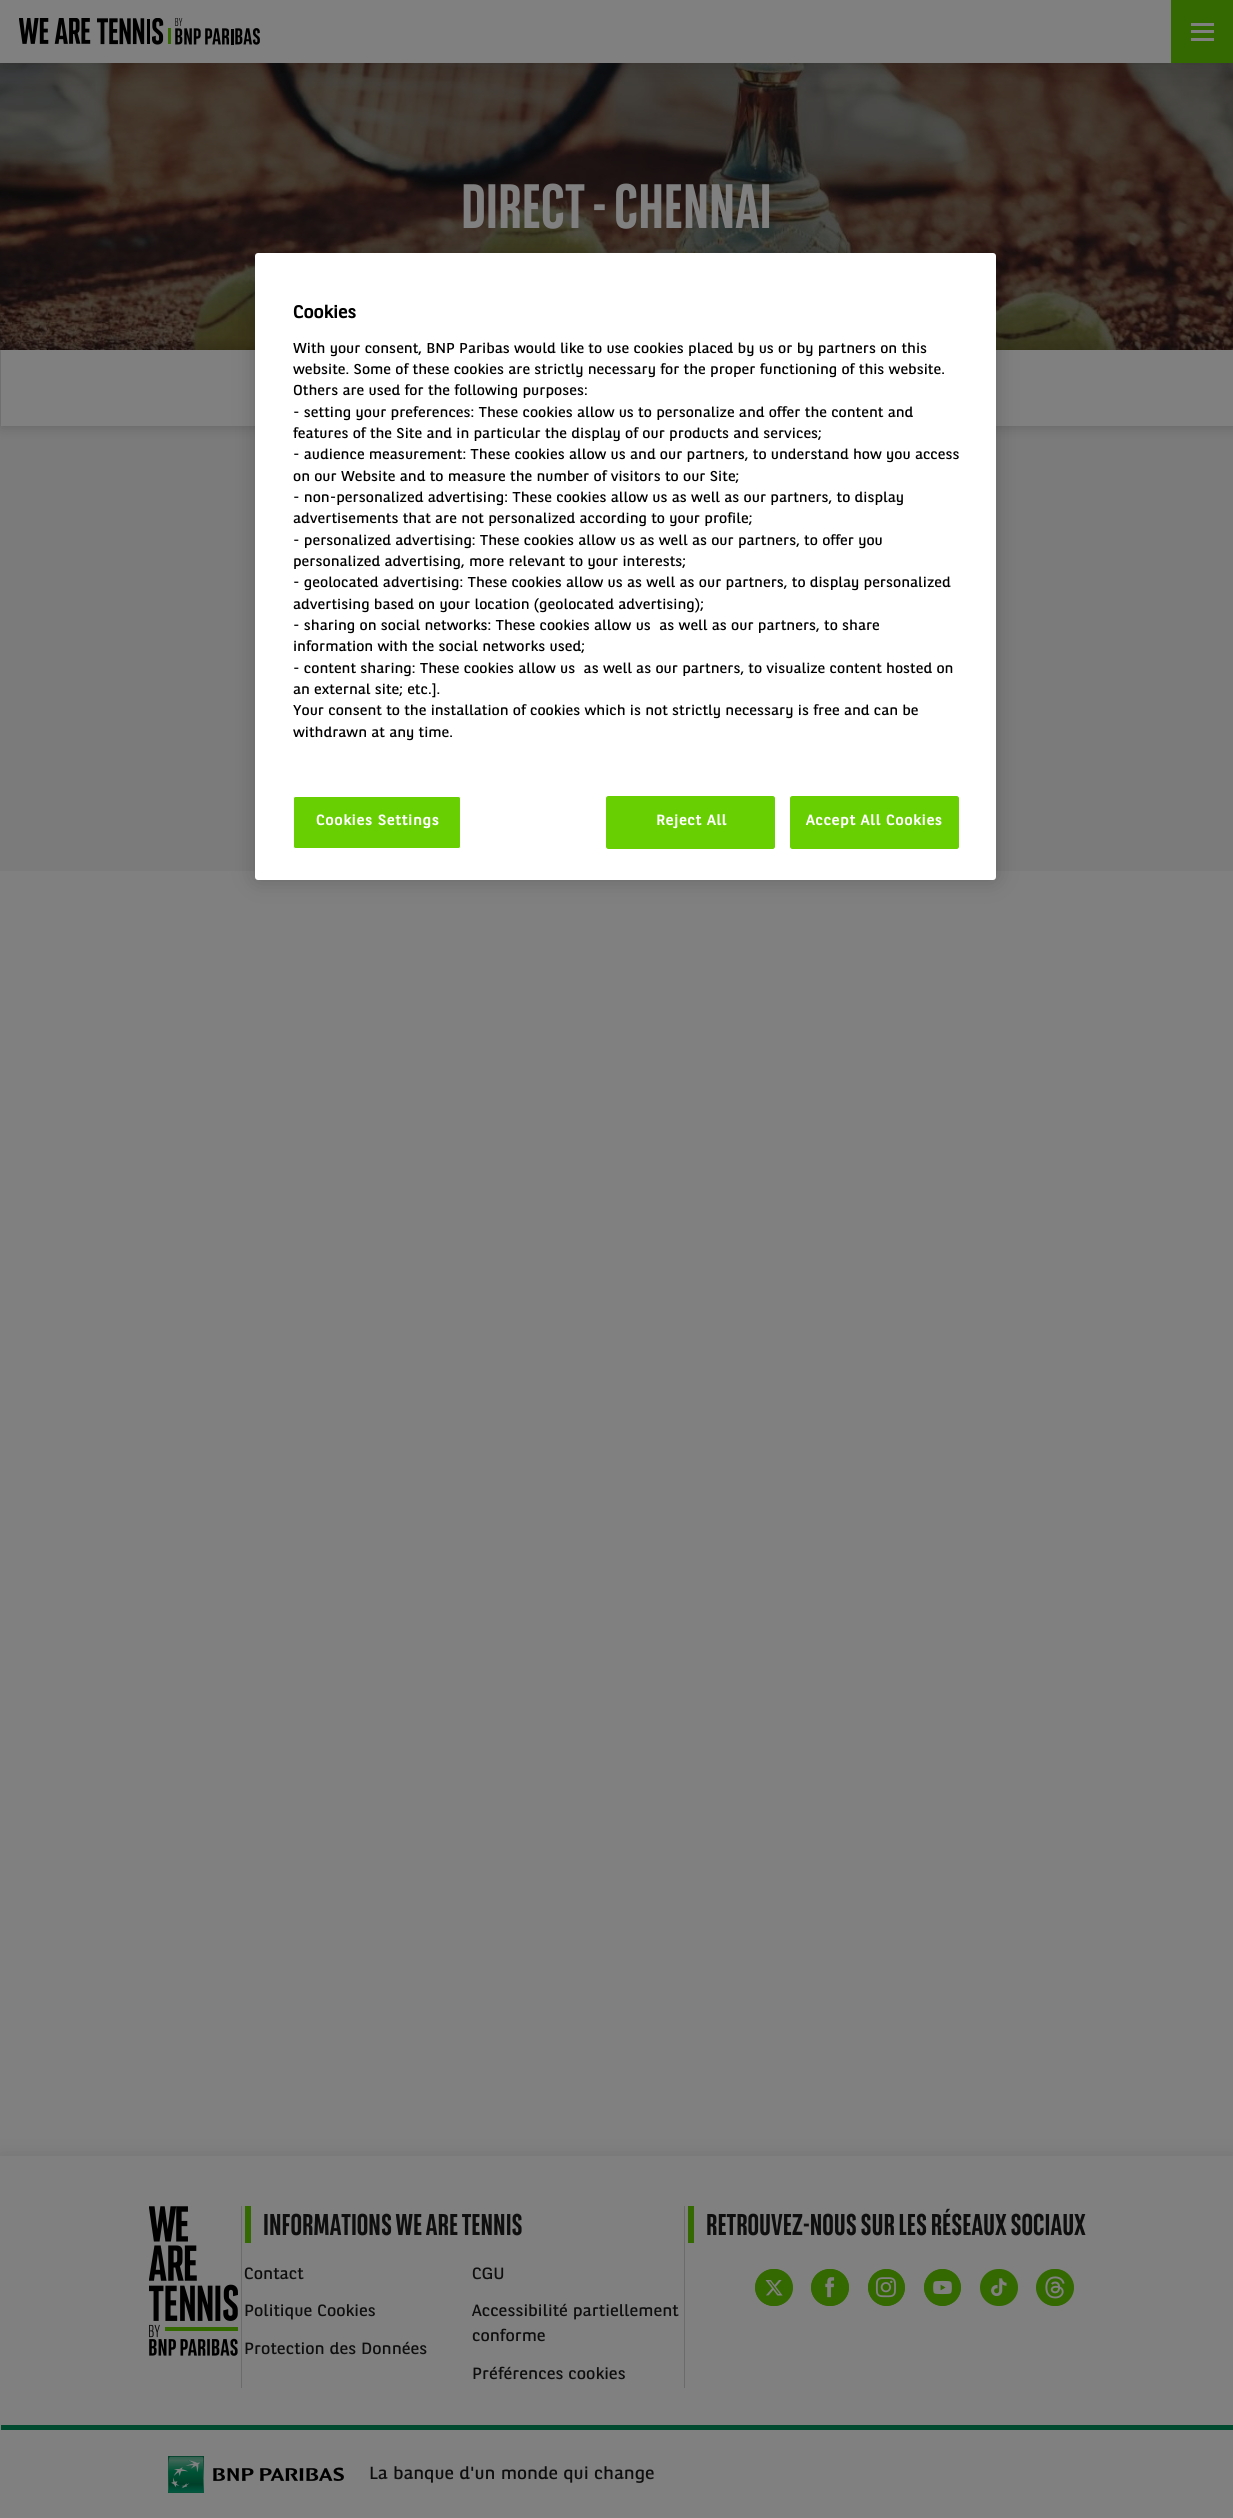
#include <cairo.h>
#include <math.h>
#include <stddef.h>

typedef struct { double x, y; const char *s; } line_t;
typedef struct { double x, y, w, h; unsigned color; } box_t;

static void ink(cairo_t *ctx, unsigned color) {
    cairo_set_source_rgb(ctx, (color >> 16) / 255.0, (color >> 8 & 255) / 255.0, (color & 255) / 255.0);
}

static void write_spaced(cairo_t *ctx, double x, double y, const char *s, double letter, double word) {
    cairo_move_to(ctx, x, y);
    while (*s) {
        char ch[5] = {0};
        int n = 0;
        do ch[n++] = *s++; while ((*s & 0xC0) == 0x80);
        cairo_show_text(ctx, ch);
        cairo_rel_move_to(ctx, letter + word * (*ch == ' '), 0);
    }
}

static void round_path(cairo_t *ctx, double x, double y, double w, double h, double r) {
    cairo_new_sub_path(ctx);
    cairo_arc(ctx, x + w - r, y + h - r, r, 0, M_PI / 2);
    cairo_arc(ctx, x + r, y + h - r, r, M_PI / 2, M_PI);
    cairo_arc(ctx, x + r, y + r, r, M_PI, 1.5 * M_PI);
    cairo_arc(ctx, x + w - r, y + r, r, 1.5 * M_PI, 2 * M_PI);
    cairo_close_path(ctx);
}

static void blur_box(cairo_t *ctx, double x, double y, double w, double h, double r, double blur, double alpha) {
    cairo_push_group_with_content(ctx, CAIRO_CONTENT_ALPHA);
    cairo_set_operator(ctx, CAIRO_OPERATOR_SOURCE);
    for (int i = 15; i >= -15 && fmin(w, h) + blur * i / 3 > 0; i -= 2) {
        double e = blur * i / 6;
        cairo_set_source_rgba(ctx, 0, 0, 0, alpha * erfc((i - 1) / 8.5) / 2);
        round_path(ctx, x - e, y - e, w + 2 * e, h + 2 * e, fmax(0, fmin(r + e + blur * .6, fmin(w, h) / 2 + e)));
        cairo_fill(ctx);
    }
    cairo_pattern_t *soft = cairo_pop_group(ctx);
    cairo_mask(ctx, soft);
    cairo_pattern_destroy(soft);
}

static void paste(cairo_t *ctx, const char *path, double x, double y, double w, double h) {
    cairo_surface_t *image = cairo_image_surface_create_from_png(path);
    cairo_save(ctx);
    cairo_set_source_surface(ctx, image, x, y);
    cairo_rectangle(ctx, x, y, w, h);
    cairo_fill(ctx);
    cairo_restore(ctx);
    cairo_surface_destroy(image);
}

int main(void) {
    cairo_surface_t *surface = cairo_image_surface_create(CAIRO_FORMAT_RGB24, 1233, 2518);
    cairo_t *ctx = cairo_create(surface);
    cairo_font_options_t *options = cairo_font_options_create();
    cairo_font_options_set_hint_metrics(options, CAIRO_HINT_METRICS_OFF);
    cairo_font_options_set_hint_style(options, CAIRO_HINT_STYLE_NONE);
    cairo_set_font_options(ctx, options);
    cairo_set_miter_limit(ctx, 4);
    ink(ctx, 0x808080);
    cairo_paint(ctx);
    paste(ctx, "media/2.png", 0, 63, 1233, 287);
    ink(ctx, 0x000000);
    blur_box(ctx, 0, 0, 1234, 63, 0, 12.5, 0.2);
    ink(ctx, 0x808080);
    cairo_rectangle(ctx, 0, 0, 1171, 63);
    cairo_fill(ctx);
    paste(ctx, "media/1.png", 19, 18, 241, 27);
    {
        static const box_t items[] = {
            {1171, 0, 62, 63, 0x346801},
            {1191, 23, 23, 3, 0x808080},
            {1191, 30, 23, 3, 0x808080},
            {1191, 38, 23, 3, 0x808080},
        };
        for (size_t i = 0; i < sizeof items / sizeof *items; i++) {
            ink(ctx, items[i].color);
            cairo_rectangle(ctx, items[i].x, items[i].y, items[i].w, items[i].h);
            cairo_fill(ctx);
        }
    }
    cairo_select_font_face(ctx, "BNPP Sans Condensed", CAIRO_FONT_SLANT_NORMAL, CAIRO_FONT_WEIGHT_BOLD);
    cairo_set_font_size(ctx, 62.5);
    cairo_move_to(ctx, 461, 228);
    cairo_show_text(ctx, "DIRECT - CHENNAI");
    ink(ctx, 0x7B7B7B);
    cairo_rectangle(ctx, 0, 350, 1233, 521);
    cairo_fill(ctx);
    ink(ctx, 0x000000);
    blur_box(ctx, 1, 350, 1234, 76, 0, 7.5, 0.2);
    ink(ctx, 0x808080);
    cairo_rectangle(ctx, 1, 350, 1232, 76);
    cairo_fill(ctx);
    ink(ctx, 0x000000);
    blur_box(ctx, 0, 2156, 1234, 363, 0, 9.5, 0.1);
    ink(ctx, 0x808080);
    cairo_rectangle(ctx, 0, 2156, 1233, 362);
    cairo_fill(ctx);
    paste(ctx, "media/3.png", 149, 2206, 89, 150);
    ink(ctx, 0x6B6B6B);
    cairo_rectangle(ctx, 241, 2206, 1, 182);
    cairo_fill(ctx);
    ink(ctx, 0x346801);
    cairo_rectangle(ctx, 245, 2206, 6, 37);
    cairo_fill(ctx);
    cairo_set_font_size(ctx, 30);
    ink(ctx, 0x0E0E0E);
    cairo_move_to(ctx, 263, 2235);
    cairo_show_text(ctx, "INFORMATIONS WE ARE TENNIS");
    cairo_select_font_face(ctx, "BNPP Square", CAIRO_FONT_SLANT_NORMAL, CAIRO_FONT_WEIGHT_NORMAL);
    cairo_set_font_size(ctx, 16.25);
    {
        static const line_t items[] = {
            {244, 2279, "Contact"},
            {472, 2279, "CGU"},
            {244, 2316, "Politique Cookies"},
            {472, 2316, "Accessibilité partiellement"},
            {472, 2341, "conforme"},
            {244, 2354, "Protection des Données"},
            {472, 2379, "Préférences cookies"},
        };
        for (size_t i = 0; i < sizeof items / sizeof *items; i++) {
            cairo_move_to(ctx, items[i].x, items[i].y);
            cairo_show_text(ctx, items[i].s);
        }
    }
    ink(ctx, 0x6B6B6B);
    cairo_rectangle(ctx, 684, 2206, 1, 182);
    cairo_fill(ctx);
    ink(ctx, 0x346801);
    cairo_rectangle(ctx, 688, 2206, 6, 37);
    cairo_fill(ctx);
    cairo_select_font_face(ctx, "BNPP Sans Condensed", CAIRO_FONT_SLANT_NORMAL, CAIRO_FONT_WEIGHT_BOLD);
    cairo_set_font_size(ctx, 30);
    ink(ctx, 0x0E0E0E);
    cairo_move_to(ctx, 706, 2235);
    cairo_show_text(ctx, "RETROUVEZ-NOUS SUR LES RÉSEAUX SOCIAUX");
    round_path(ctx, 756.5, 2270.5, 35, 34, 17);
    ink(ctx, 0x346801);
    cairo_set_line_width(ctx, 3);
    cairo_stroke(ctx);
    paste(ctx, "media/4.png", 755, 2269, 38, 37);
    round_path(ctx, 812.5, 2270.5, 35, 34, 17);
    cairo_stroke(ctx);
    paste(ctx, "media/5.png", 811, 2269, 38, 37);
    cairo_arc(ctx, 886.5, 2287.5, 17, 0, 2 * M_PI);
    cairo_stroke(ctx);
    paste(ctx, "media/6.png", 868, 2269, 37, 37);
    cairo_arc(ctx, 942.5, 2287.5, 17, 0, 2 * M_PI);
    cairo_stroke(ctx);
    paste(ctx, "media/7.png", 924, 2269, 37, 37);
    round_path(ctx, 981.5, 2270.5, 35, 34, 17);
    cairo_stroke(ctx);
    paste(ctx, "media/8.png", 983, 2272, 32, 31);
    round_path(ctx, 1037.5, 2270.5, 35, 34, 17);
    cairo_stroke(ctx);
    paste(ctx, "media/9.png", 1036, 2269, 38, 37);
    ink(ctx, 0x004B2F);
    cairo_rectangle(ctx, 1, 2425, 1232, 5);
    cairo_fill(ctx);
    paste(ctx, "media/10.png", 168, 2456, 176, 37);
    cairo_select_font_face(ctx, "BNPP Square", CAIRO_FONT_SLANT_NORMAL, CAIRO_FONT_WEIGHT_NORMAL);
    cairo_set_font_size(ctx, 17.5);
    ink(ctx, 0x0E0E0E);
    cairo_move_to(ctx, 369, 2479);
    cairo_show_text(ctx, "La banque d'un monde qui change");
    ink(ctx, 0x000000);
    blur_box(ctx, 255, 253, 741, 627, 3, 11, 0.2);
    ink(ctx, 0xFFFFFF);
    round_path(ctx, 255, 253, 741, 627, 3);
    cairo_fill(ctx);
    cairo_select_font_face(ctx, "BNPP Square", CAIRO_FONT_SLANT_NORMAL, CAIRO_FONT_WEIGHT_BOLD);
    ink(ctx, 0x000000);
    cairo_move_to(ctx, 293, 318);
    cairo_show_text(ctx, "Cookies");
    cairo_select_font_face(ctx, "BNPP Square", CAIRO_FONT_SLANT_NORMAL, CAIRO_FONT_WEIGHT_NORMAL);
    cairo_set_font_size(ctx, 14.25);
    {
        static const line_t items[] = {
            {293, 353, "With your consent, BNP Paribas would like to use cookies placed by us or by partners on this"},
            {293, 374, "website. Some of these cookies are strictly necessary for the proper functioning of this website."},
            {293, 395, "Others are used for the following purposes:"},
            {293, 417, "- setting your preferences: These cookies allow us to personalize and offer the content and"},
            {293, 438, "features of the Site and in particular the display of our products and services;"},
            {293, 459, "- audience measurement: These cookies allow us and our partners, to understand how you access"},
            {293, 481, "on our Website and to measure the number of visitors to our Site;"},
            {293, 502, "- non-personalized advertising: These cookies allow us as well as our partners, to display"},
            {293, 523, "advertisements that are not personalized according to your profile;"},
            {293, 545, "- personalized advertising: These cookies allow us as well as our partners, to offer you"},
            {293, 566, "personalized advertising, more relevant to your interests;"},
            {293, 587, "- geolocated advertising: These cookies allow us as well as our partners, to display personalized"},
            {293, 609, "advertising based on your location (geolocated advertising);"},
            {293, 630, "- sharing on social networks: These cookies allow us  as well as our partners, to share"},
            {293, 651, "information with the social networks used;"},
            {293, 673, "- content sharing: These cookies allow us  as well as our partners, to visualize content hosted on"},
            {293, 694, "an external site; etc.]."},
            {293, 715, "Your consent to the installation of cookies which is not strictly necessary is free and can be"},
            {293, 737, "withdrawn at any time."},
        };
        for (size_t i = 0; i < sizeof items / sizeof *items; i++) {
            cairo_move_to(ctx, items[i].x, items[i].y);
            cairo_show_text(ctx, items[i].s);
        }
    }
    ink(ctx, 0x68D002);
    round_path(ctx, 293.5, 796.5, 167, 52, 2);
    cairo_fill_preserve(ctx);
    ink(ctx, 0xFFFFFF);
    cairo_set_line_width(ctx, 1);
    cairo_stroke(ctx);
    cairo_select_font_face(ctx, "BNPP Square", CAIRO_FONT_SLANT_NORMAL, CAIRO_FONT_WEIGHT_BOLD);
    write_spaced(ctx, 316, 825, "Cookies Settings", 0.75, 0);
    ink(ctx, 0x68D002);
    round_path(ctx, 606.5, 796.5, 168, 52, 2);
    cairo_fill_preserve(ctx);
    cairo_stroke(ctx);
    ink(ctx, 0xFFFFFF);
    write_spaced(ctx, 656, 825, "Reject All", 0.75, 0);
    ink(ctx, 0x68D002);
    round_path(ctx, 790.5, 796.5, 168, 52, 2);
    cairo_fill_preserve(ctx);
    cairo_stroke(ctx);
    ink(ctx, 0xFFFFFF);
    write_spaced(ctx, 806, 825, "Accept All Cookies", 0.75, 0);
    cairo_surface_write_to_png(surface, "image.png");
    cairo_font_options_destroy(options);
    cairo_destroy(ctx);
    cairo_surface_destroy(surface);
    return 0;
}
